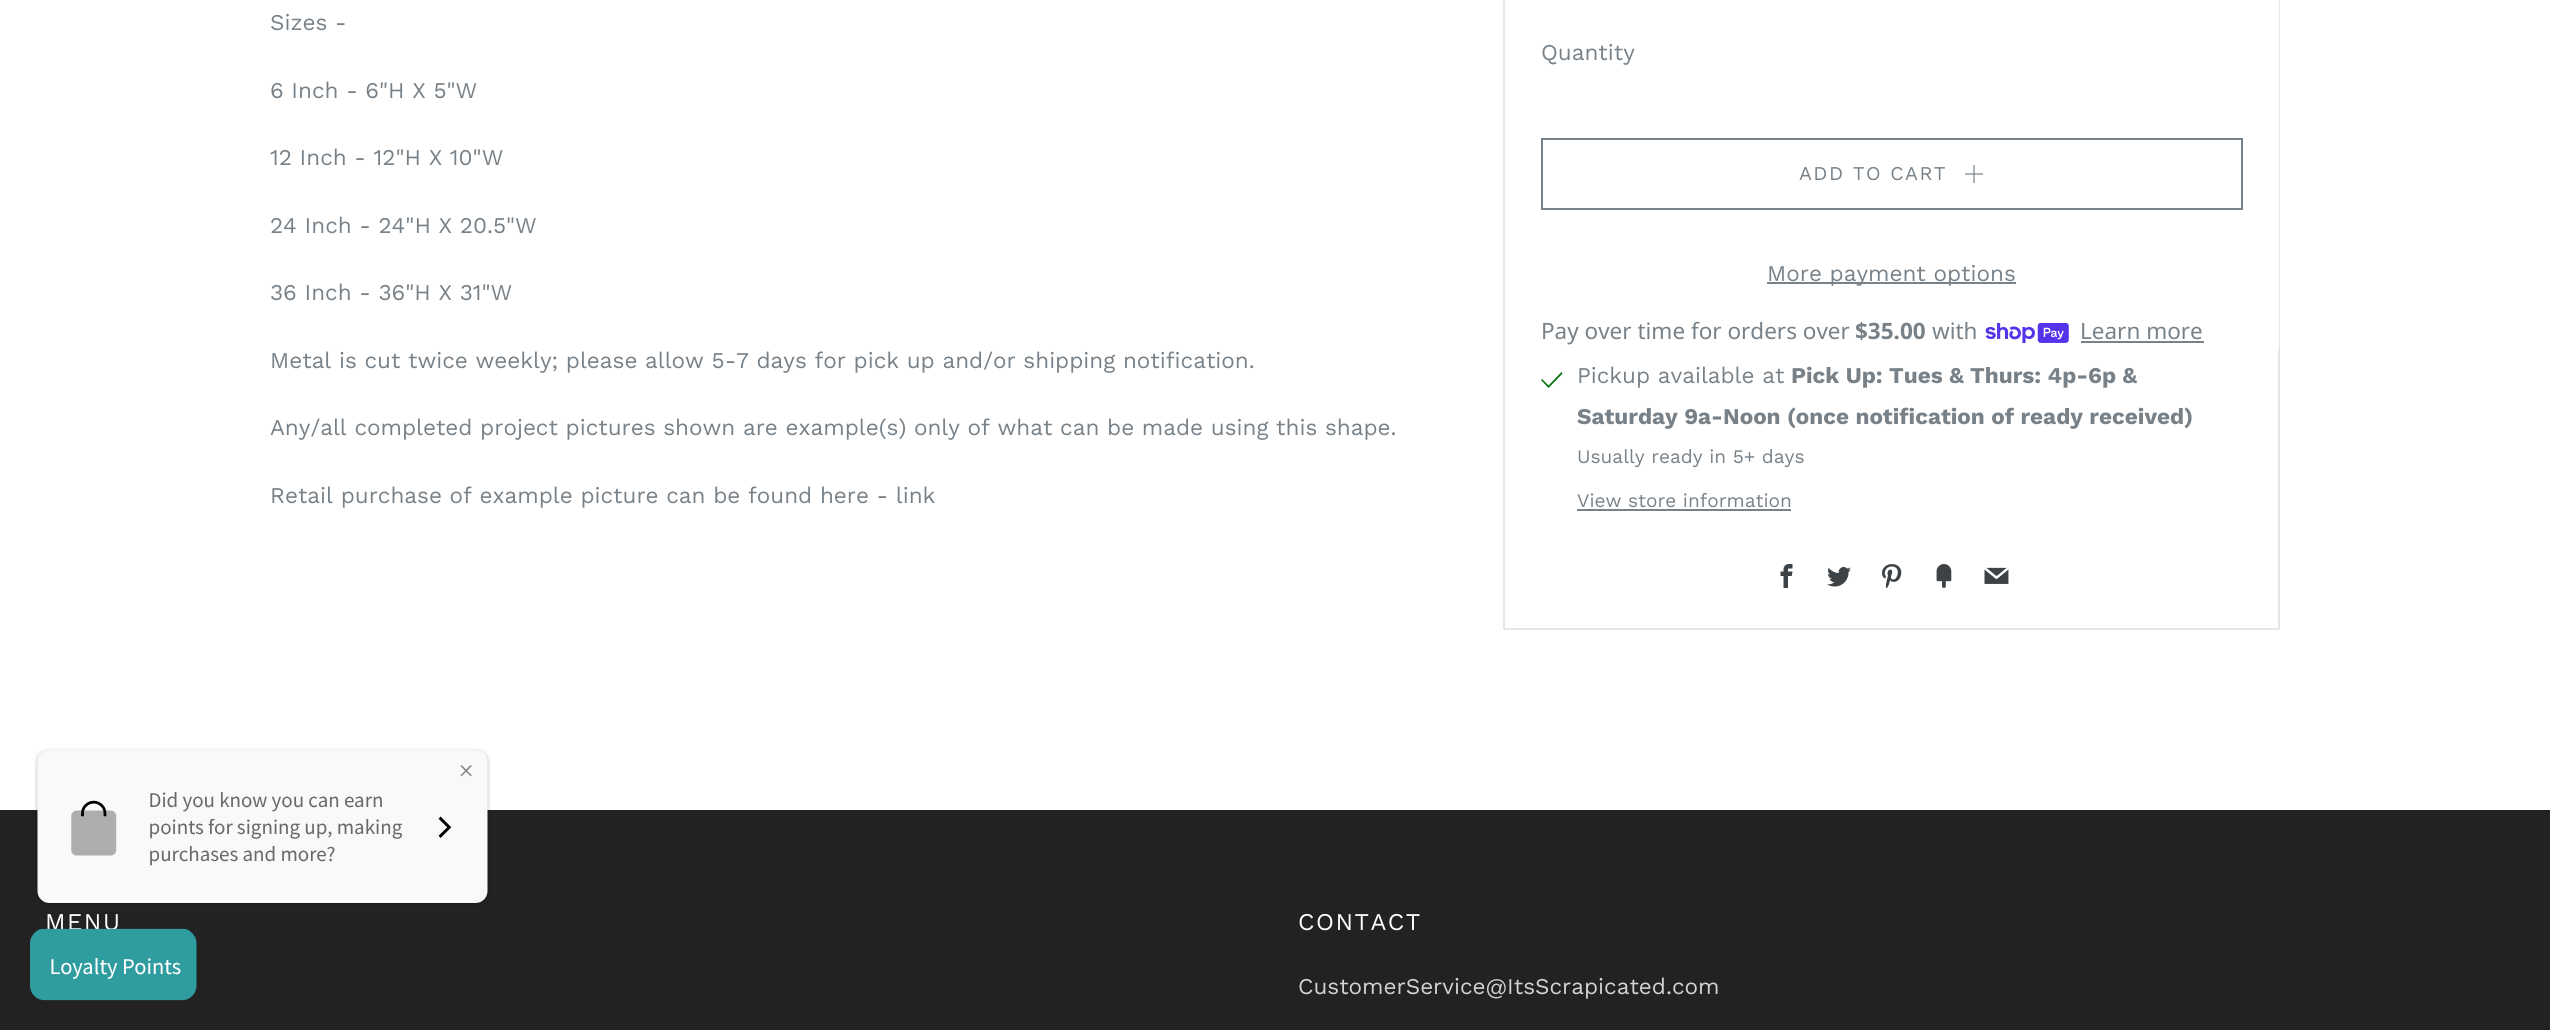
#include <cairo.h>
#include <math.h>
#include <stddef.h>

typedef struct { double x, y; const char *s; } line_t;

static void ink(cairo_t *ctx, unsigned color) {
    cairo_set_source_rgb(ctx, (color >> 16) / 255.0, (color >> 8 & 255) / 255.0, (color & 255) / 255.0);
}

static void write_spaced(cairo_t *ctx, double x, double y, const char *s, double letter, double word) {
    cairo_move_to(ctx, x, y);
    while (*s) {
        char ch[5] = {0};
        int n = 0;
        do ch[n++] = *s++; while ((*s & 0xC0) == 0x80);
        cairo_show_text(ctx, ch);
        cairo_rel_move_to(ctx, letter + word * (*ch == ' '), 0);
    }
}

static void paste(cairo_t *ctx, const char *path, double x, double y, double w, double h) {
    cairo_surface_t *image = cairo_image_surface_create_from_png(path);
    cairo_save(ctx);
    cairo_set_source_surface(ctx, image, x, y);
    cairo_rectangle(ctx, x, y, w, h);
    cairo_fill(ctx);
    cairo_restore(ctx);
    cairo_surface_destroy(image);
}

int main(void) {
    cairo_surface_t *surface = cairo_image_surface_create(CAIRO_FORMAT_RGB24, 2550, 1030);
    cairo_t *ctx = cairo_create(surface);
    cairo_font_options_t *options = cairo_font_options_create();
    cairo_font_options_set_hint_metrics(options, CAIRO_HINT_METRICS_OFF);
    cairo_font_options_set_hint_style(options, CAIRO_HINT_STYLE_NONE);
    cairo_set_font_options(ctx, options);
    cairo_set_miter_limit(ctx, 4);
    ink(ctx, 0xFFFFFF);
    cairo_paint(ctx);
    cairo_select_font_face(ctx, "Work Sans", CAIRO_FONT_SLANT_NORMAL, CAIRO_FONT_WEIGHT_NORMAL);
    cairo_set_font_size(ctx, 22.5);
    ink(ctx, 0x788188);
    {
        static const line_t items[] = {
            {270, 30, "Sizes -"},
            {270, 98, "6 Inch - 6\"H X 5\"W"},
            {270, 165, "12 Inch - 12\"H X 10\"W"},
            {270, 233, "24 Inch - 24\"H X 20.5\"W"},
            {270, 300, "36 Inch - 36\"H X 31\"W"},
            {270, 368, "Metal is cut twice weekly; please allow 5-7 days for pick up and/or shipping notification."},
            {270, 435, "Any/all completed project pictures shown are example(s) only of what can be made using this shape."},
            {270, 503, "Retail purchase of example picture can be found here - link"},
        };
        for (size_t i = 0; i < sizeof items / sizeof *items; i++) {
            cairo_move_to(ctx, items[i].x, items[i].y);
            cairo_show_text(ctx, items[i].s);
        }
    }
    cairo_rectangle(ctx, 1504, -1, 775, 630);
    ink(ctx, 0xE4E6E7);
    cairo_stroke(ctx);
    ink(ctx, 0xFFFFFF);
    cairo_rectangle(ctx, 2278, 0, 1, 348);
    cairo_fill(ctx);
    ink(ctx, 0x788188);
    cairo_move_to(ctx, 1541, 60);
    cairo_show_text(ctx, "Quantity");
    cairo_rectangle(ctx, 1542, 139, 700, 70);
    cairo_stroke(ctx);
    cairo_set_font_size(ctx, 19.5);
    write_spaced(ctx, 1799, 180, "ADD TO CART", 1.5, 0);
    paste(ctx, "media/1.png", 1965, 165, 18, 18);
    cairo_rectangle(ctx, 1767, 282, 249, 2);
    cairo_fill(ctx);
    cairo_set_font_size(ctx, 22.5);
    cairo_move_to(ctx, 1767, 281);
    cairo_show_text(ctx, "More payment options");
    cairo_select_font_face(ctx, "Noto Sans", CAIRO_FONT_SLANT_NORMAL, CAIRO_FONT_WEIGHT_NORMAL);
    cairo_move_to(ctx, 1541, 339);
    cairo_show_text(ctx, "Pay over time for orders over");
    cairo_select_font_face(ctx, "Noto Sans", CAIRO_FONT_SLANT_NORMAL, CAIRO_FONT_WEIGHT_BOLD);
    cairo_move_to(ctx, 1855, 339);
    cairo_show_text(ctx, "$35.00");
    cairo_select_font_face(ctx, "Noto Sans", CAIRO_FONT_SLANT_NORMAL, CAIRO_FONT_WEIGHT_NORMAL);
    cairo_move_to(ctx, 1932, 339);
    cairo_show_text(ctx, "with");
    paste(ctx, "media/2.png", 1985, 323, 84, 21);
    cairo_move_to(ctx, 2080, 339);
    cairo_show_text(ctx, "Learn more");
    cairo_rectangle(ctx, 2081, 341, 123, 2);
    cairo_fill(ctx);
    ink(ctx, 0x00730B);
    cairo_new_path(ctx);
    cairo_move_to(ctx, 1542, 379);
    cairo_line_to(ctx, 1541, 380);
    cairo_line_to(ctx, 1548.5, 388);
    cairo_line_to(ctx, 1562.5, 373.5);
    cairo_line_to(ctx, 1561.5, 372);
    cairo_line_to(ctx, 1548.5, 385.5);
    cairo_close_path(ctx);
    cairo_fill(ctx);
    cairo_select_font_face(ctx, "Work Sans", CAIRO_FONT_SLANT_NORMAL, CAIRO_FONT_WEIGHT_NORMAL);
    ink(ctx, 0x788188);
    cairo_move_to(ctx, 1577, 383);
    cairo_show_text(ctx, "Pickup available at");
    cairo_select_font_face(ctx, "Work Sans", CAIRO_FONT_SLANT_NORMAL, CAIRO_FONT_WEIGHT_BOLD);
    cairo_move_to(ctx, 1791, 383);
    cairo_show_text(ctx, "Pick Up: Tues & Thurs: 4p-6p &");
    cairo_move_to(ctx, 1577, 424);
    cairo_show_text(ctx, "Saturday 9a-Noon (once notification of ready received)");
    cairo_select_font_face(ctx, "Work Sans", CAIRO_FONT_SLANT_NORMAL, CAIRO_FONT_WEIGHT_NORMAL);
    cairo_set_font_size(ctx, 19.1);
    cairo_move_to(ctx, 1577, 463);
    cairo_show_text(ctx, "Usually ready in 5+ days");
    cairo_move_to(ctx, 1577, 507);
    cairo_show_text(ctx, "View store information");
    cairo_rectangle(ctx, 1577, 509, 214, 2);
    cairo_fill(ctx);
    paste(ctx, "media/3.png", 1780, 564, 13, 24);
    paste(ctx, "media/4.png", 1827, 567, 24, 20);
    paste(ctx, "media/5.png", 1882, 564, 20, 24);
    paste(ctx, "media/6.png", 1936, 564, 16, 24);
    paste(ctx, "media/7.png", 1984, 567, 25, 17);
    ink(ctx, 0x222222);
    cairo_rectangle(ctx, 0, 810, 2550, 220);
    cairo_fill(ctx);
    cairo_set_font_size(ctx, 24);
    ink(ctx, 0xFFFFFF);
    write_spaced(ctx, 45, 930, "MENU", 1.5, 0);
    write_spaced(ctx, 1298, 930, "CONTACT", 1.5, 0);
    cairo_set_font_size(ctx, 22.5);
    ink(ctx, 0xD3D3D3);
    cairo_move_to(ctx, 1298, 994);
    cairo_show_text(ctx, "CustomerService@ItsScrapicated.com");
    paste(ctx, "media/8.png", 34, 748, 457, 157);
    paste(ctx, "media/9.png", 30, 928, 167, 73);
    cairo_surface_write_to_png(surface, "image.png");
    cairo_font_options_destroy(options);
    cairo_destroy(ctx);
    cairo_surface_destroy(surface);
    return 0;
}
